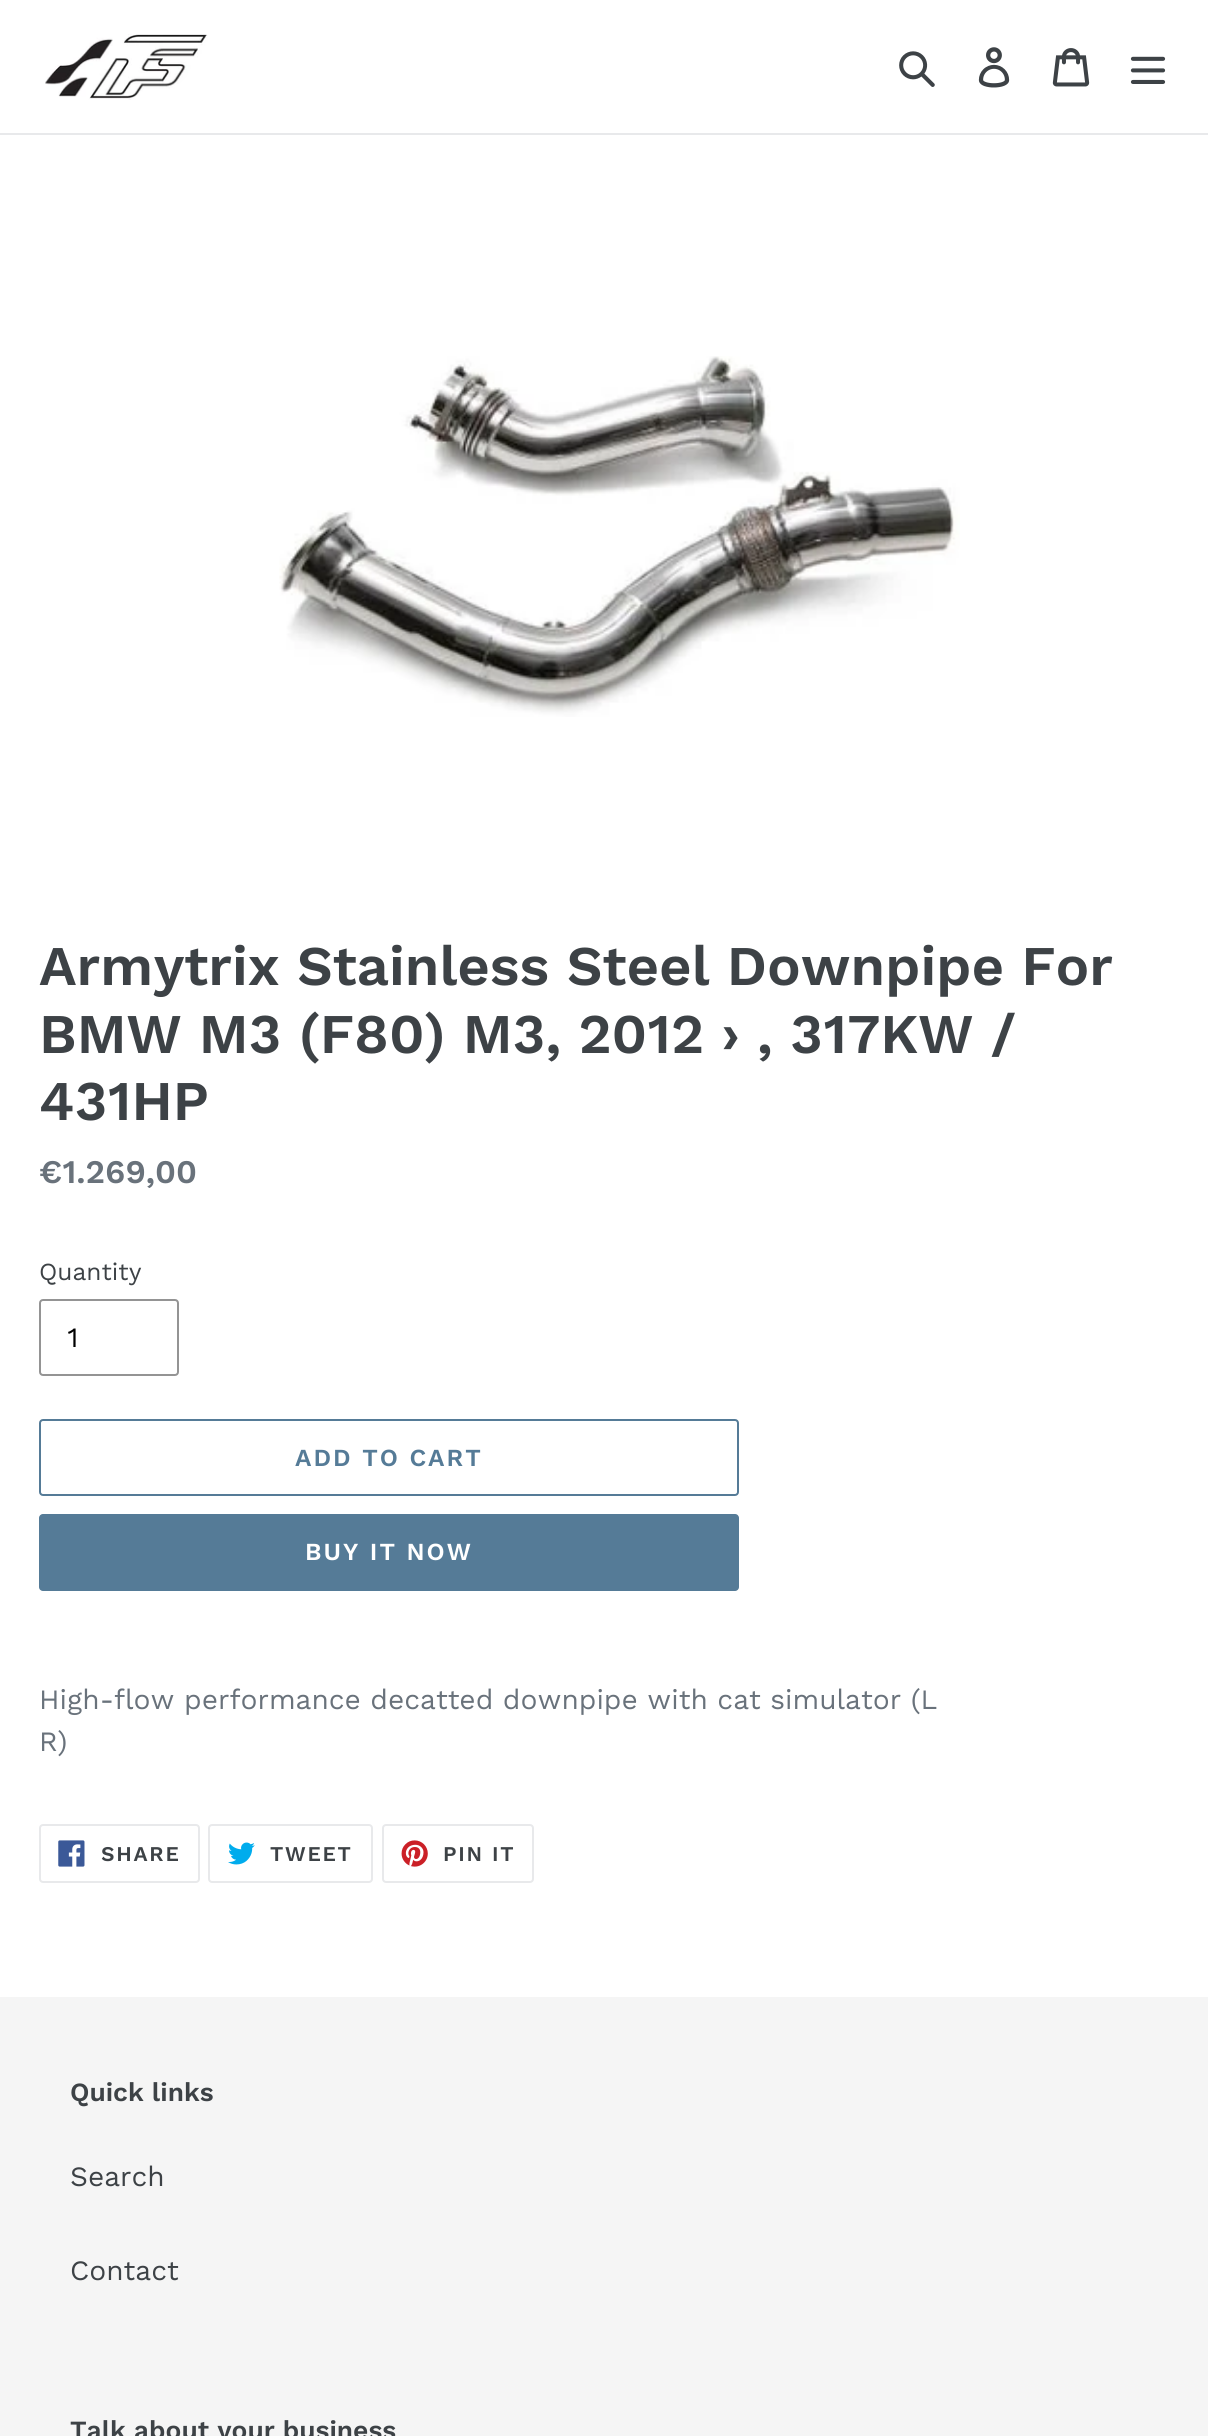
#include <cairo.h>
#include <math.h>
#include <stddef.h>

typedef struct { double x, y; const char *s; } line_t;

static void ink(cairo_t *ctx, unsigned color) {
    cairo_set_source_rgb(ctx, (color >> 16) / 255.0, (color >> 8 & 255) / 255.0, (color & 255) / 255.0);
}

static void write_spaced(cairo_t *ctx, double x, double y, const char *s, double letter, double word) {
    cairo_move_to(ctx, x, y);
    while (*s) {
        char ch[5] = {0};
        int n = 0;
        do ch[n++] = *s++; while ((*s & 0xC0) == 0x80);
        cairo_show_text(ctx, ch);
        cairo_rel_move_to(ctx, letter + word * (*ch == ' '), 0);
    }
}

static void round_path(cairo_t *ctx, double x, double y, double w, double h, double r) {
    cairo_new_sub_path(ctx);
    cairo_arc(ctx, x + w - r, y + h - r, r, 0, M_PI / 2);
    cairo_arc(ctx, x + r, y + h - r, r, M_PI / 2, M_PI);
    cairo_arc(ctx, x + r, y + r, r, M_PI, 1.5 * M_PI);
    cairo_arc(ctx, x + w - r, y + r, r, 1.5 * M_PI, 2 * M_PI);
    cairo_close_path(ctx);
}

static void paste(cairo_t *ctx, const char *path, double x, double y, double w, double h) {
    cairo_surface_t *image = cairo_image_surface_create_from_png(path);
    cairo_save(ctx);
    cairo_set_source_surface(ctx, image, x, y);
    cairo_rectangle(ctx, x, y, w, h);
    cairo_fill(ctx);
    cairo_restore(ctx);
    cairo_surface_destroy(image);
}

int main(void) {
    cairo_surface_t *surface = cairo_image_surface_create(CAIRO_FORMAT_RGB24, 1208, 2436);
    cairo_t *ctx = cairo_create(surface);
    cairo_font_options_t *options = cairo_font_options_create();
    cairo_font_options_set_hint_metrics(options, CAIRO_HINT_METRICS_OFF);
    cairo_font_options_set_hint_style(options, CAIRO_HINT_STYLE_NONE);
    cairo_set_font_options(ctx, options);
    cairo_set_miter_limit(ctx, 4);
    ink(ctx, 0xFFFFFF);
    cairo_paint(ctx);
    ink(ctx, 0xE8E9EB);
    cairo_rectangle(ctx, 0, 133, 1208, 2);
    cairo_fill(ctx);
    paste(ctx, "media/1.png", 45, 34, 163, 66);
    paste(ctx, "media/2.png", 899, 51, 36, 36);
    paste(ctx, "media/3.png", 978, 47, 32, 41);
    paste(ctx, "media/4.png", 1052, 48, 38, 39);
    paste(ctx, "media/5.png", 1130, 56, 36, 28);
    paste(ctx, "media/6.png", 279, 356, 681, 361);
    cairo_select_font_face(ctx, "Work Sans SemiBold", CAIRO_FONT_SLANT_NORMAL, CAIRO_FONT_WEIGHT_NORMAL);
    cairo_set_font_size(ctx, 56);
    ink(ctx, 0x3D4246);
    {
        static const line_t items[] = {
            {39, 985, "Armytrix Stainless Steel Downpipe For"},
            {39, 1053, "BMW M3 (F80) M3, 2012 › , 317KW /"},
            {39, 1120, "431HP"},
        };
        for (size_t i = 0; i < sizeof items / sizeof *items; i++) {
            cairo_move_to(ctx, items[i].x, items[i].y);
            cairo_show_text(ctx, items[i].s);
        }
    }
    cairo_set_font_size(ctx, 33);
    ink(ctx, 0x69727B);
    cairo_move_to(ctx, 39, 1183);
    cairo_show_text(ctx, "€1.269,00");
    cairo_select_font_face(ctx, "Work Sans", CAIRO_FONT_SLANT_NORMAL, CAIRO_FONT_WEIGHT_NORMAL);
    cairo_set_font_size(ctx, 24.5);
    ink(ctx, 0x3D4246);
    cairo_move_to(ctx, 39, 1280);
    cairo_show_text(ctx, "Quantity");
    round_path(ctx, 40, 1300, 138, 75, 3);
    ink(ctx, 0x949494);
    cairo_stroke(ctx);
    cairo_set_font_size(ctx, 28);
    ink(ctx, 0x000000);
    cairo_move_to(ctx, 67, 1347);
    cairo_show_text(ctx, "1");
    round_path(ctx, 40, 1420, 698, 75, 3);
    ink(ctx, 0x557B97);
    cairo_stroke(ctx);
    cairo_select_font_face(ctx, "Work Sans SemiBold", CAIRO_FONT_SLANT_NORMAL, CAIRO_FONT_WEIGHT_NORMAL);
    cairo_set_font_size(ctx, 24.5);
    write_spaced(ctx, 295, 1466, "ADD TO CART", 2, 0);
    round_path(ctx, 39, 1514, 700, 77, 4);
    cairo_fill(ctx);
    ink(ctx, 0xFFFFFF);
    write_spaced(ctx, 305, 1560, "BUY IT NOW", 2, 0);
    cairo_select_font_face(ctx, "Work Sans", CAIRO_FONT_SLANT_NORMAL, CAIRO_FONT_WEIGHT_NORMAL);
    cairo_set_font_size(ctx, 28);
    ink(ctx, 0x69727B);
    cairo_move_to(ctx, 39, 1709);
    cairo_show_text(ctx, "High-flow performance decatted downpipe with cat simulator (L");
    cairo_move_to(ctx, 39, 1751);
    cairo_show_text(ctx, "R)");
    round_path(ctx, 40, 1825, 159, 57, 3);
    ink(ctx, 0xE8E9EB);
    cairo_stroke(ctx);
    paste(ctx, "media/7.png", 58, 1840, 27, 27);
    cairo_select_font_face(ctx, "Work Sans SemiBold", CAIRO_FONT_SLANT_NORMAL, CAIRO_FONT_WEIGHT_NORMAL);
    cairo_set_font_size(ctx, 21);
    ink(ctx, 0x3D4246);
    write_spaced(ctx, 101, 1861, "SHARE", 1.75, 0);
    round_path(ctx, 209, 1825, 163, 57, 3);
    ink(ctx, 0xE8E9EB);
    cairo_stroke(ctx);
    paste(ctx, "media/8.png", 228, 1842, 27, 23);
    ink(ctx, 0x3D4246);
    write_spaced(ctx, 270, 1861, "TWEET", 1.75, 0);
    round_path(ctx, 383, 1825, 150, 57, 3);
    ink(ctx, 0xE8E9EB);
    cairo_stroke(ctx);
    paste(ctx, "media/9.png", 401, 1840, 27, 27);
    ink(ctx, 0x3D4246);
    write_spaced(ctx, 443, 1861, "PIN IT", 1.75, 0);
    ink(ctx, 0xF5F5F5);
    cairo_rectangle(ctx, 0, 1997, 1208, 439);
    cairo_fill(ctx);
    cairo_set_font_size(ctx, 26.25);
    ink(ctx, 0x3D4246);
    cairo_move_to(ctx, 70, 2101);
    cairo_show_text(ctx, "Quick links");
    cairo_select_font_face(ctx, "Work Sans", CAIRO_FONT_SLANT_NORMAL, CAIRO_FONT_WEIGHT_NORMAL);
    cairo_set_font_size(ctx, 28);
    cairo_move_to(ctx, 70, 2186);
    cairo_show_text(ctx, "Search");
    cairo_move_to(ctx, 70, 2280);
    cairo_show_text(ctx, "Contact");
    cairo_select_font_face(ctx, "Work Sans SemiBold", CAIRO_FONT_SLANT_NORMAL, CAIRO_FONT_WEIGHT_NORMAL);
    cairo_set_font_size(ctx, 26.25);
    cairo_move_to(ctx, 70, 2439);
    cairo_show_text(ctx, "Talk about your business");
    cairo_surface_write_to_png(surface, "image.png");
    cairo_font_options_destroy(options);
    cairo_destroy(ctx);
    cairo_surface_destroy(surface);
    return 0;
}
